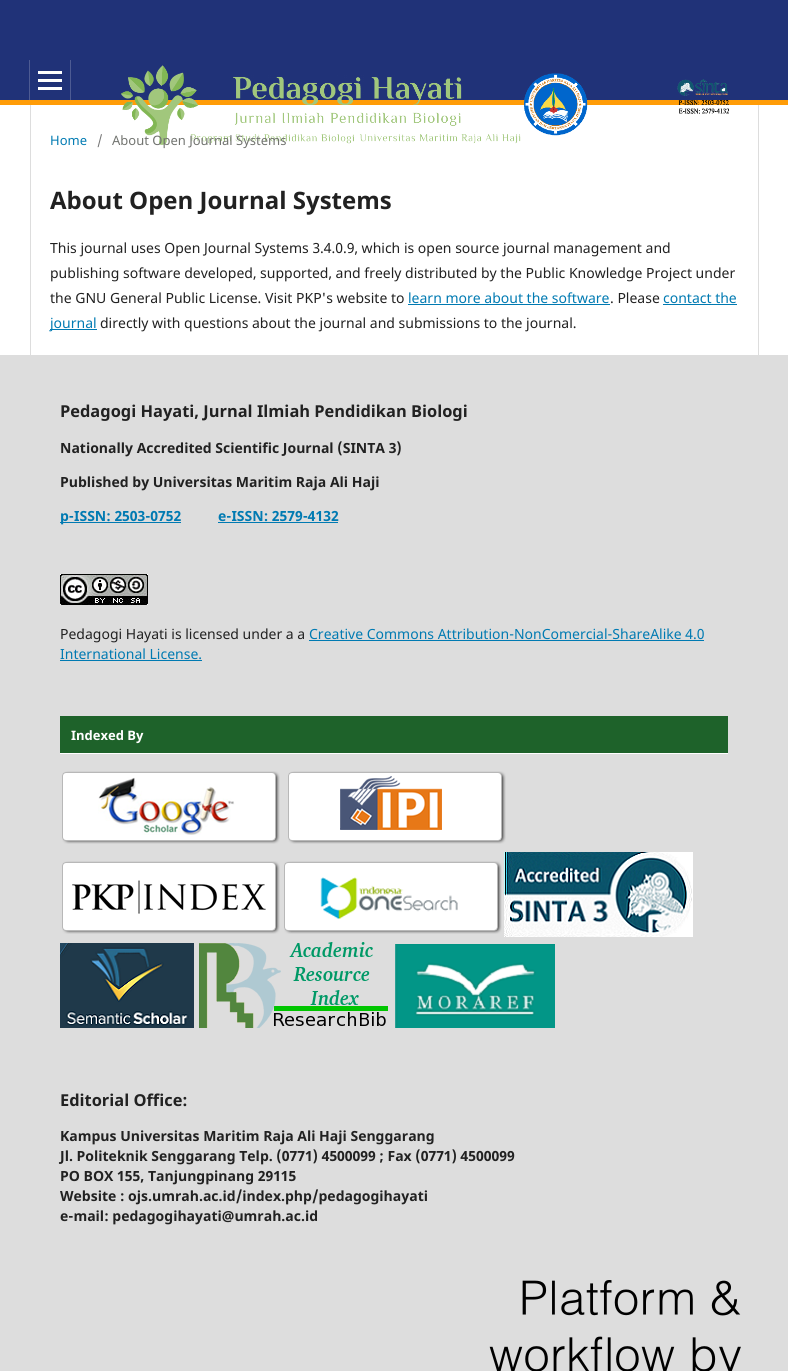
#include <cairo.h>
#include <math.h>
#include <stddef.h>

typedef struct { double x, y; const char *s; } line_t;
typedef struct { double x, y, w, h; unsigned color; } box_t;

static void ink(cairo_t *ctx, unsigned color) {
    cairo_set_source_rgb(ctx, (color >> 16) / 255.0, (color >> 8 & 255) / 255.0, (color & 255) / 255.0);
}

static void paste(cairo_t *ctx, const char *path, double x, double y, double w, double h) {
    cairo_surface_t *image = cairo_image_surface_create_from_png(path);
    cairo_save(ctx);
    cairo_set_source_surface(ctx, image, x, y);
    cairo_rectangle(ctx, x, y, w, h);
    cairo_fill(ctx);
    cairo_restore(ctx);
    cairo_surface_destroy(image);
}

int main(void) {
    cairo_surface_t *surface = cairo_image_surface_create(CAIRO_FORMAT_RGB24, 788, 1371);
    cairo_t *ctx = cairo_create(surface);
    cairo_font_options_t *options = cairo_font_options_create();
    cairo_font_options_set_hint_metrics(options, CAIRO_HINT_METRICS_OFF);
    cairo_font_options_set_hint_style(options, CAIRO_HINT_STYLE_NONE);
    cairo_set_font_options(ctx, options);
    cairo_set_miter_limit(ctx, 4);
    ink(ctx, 0xFFFFFF);
    cairo_paint(ctx);
    {
        static const box_t items[] = {
            {0, 0, 788, 100, 0x203278},
            {0, 100, 788, 5, 0xFF9C07},
            {29, 60, 1, 40, 0x4D5B93},
            {70, 60, 1, 40, 0x4D5B93},
            {38, 87, 24, 3, 0xFFFFFF},
            {38, 71, 24, 3, 0xFFFFFF},
            {38, 79, 24, 3, 0xFFFFFF},
        };
        for (size_t i = 0; i < sizeof items / sizeof *items; i++) {
            ink(ctx, items[i].color);
            cairo_rectangle(ctx, items[i].x, items[i].y, items[i].w, items[i].h);
            cairo_fill(ctx);
        }
    }
    paste(ctx, "media/1.png", 121, 65, 608, 80);
    ink(ctx, 0xDDDDDD);
    cairo_rectangle(ctx, 30, 105, 1, 250);
    cairo_fill(ctx);
    cairo_select_font_face(ctx, "Noto Sans", CAIRO_FONT_SLANT_NORMAL, CAIRO_FONT_WEIGHT_NORMAL);
    cairo_set_font_size(ctx, 13);
    ink(ctx, 0x007AB2);
    cairo_move_to(ctx, 50, 145);
    cairo_show_text(ctx, "Home");
    ink(ctx, 0x757575);
    cairo_move_to(ctx, 97, 145);
    cairo_show_text(ctx, "/");
    ink(ctx, 0x71736F);
    cairo_move_to(ctx, 112, 145);
    cairo_show_text(ctx, "About Open Journal Systems");
    cairo_select_font_face(ctx, "Noto Sans", CAIRO_FONT_SLANT_NORMAL, CAIRO_FONT_WEIGHT_BOLD);
    cairo_set_font_size(ctx, 24);
    ink(ctx, 0x212121);
    cairo_move_to(ctx, 50, 209);
    cairo_show_text(ctx, "About Open Journal Systems");
    cairo_select_font_face(ctx, "Noto Sans", CAIRO_FONT_SLANT_NORMAL, CAIRO_FONT_WEIGHT_NORMAL);
    cairo_set_font_size(ctx, 14);
    {
        static const line_t items[] = {
            {50, 253, "This journal uses Open Journal Systems 3.4.0.9, which is open source journal management and"},
            {50, 278, "publishing software developed, supported, and freely distributed by the Public Knowledge Project under"},
            {50, 303, "the GNU General Public License. Visit PKP's website to"},
        };
        for (size_t i = 0; i < sizeof items / sizeof *items; i++) {
            cairo_move_to(ctx, items[i].x, items[i].y);
            cairo_show_text(ctx, items[i].s);
        }
    }
    ink(ctx, 0x007AB2);
    cairo_move_to(ctx, 408, 303);
    cairo_show_text(ctx, "learn more about the software");
    cairo_rectangle(ctx, 408, 304, 202, 1);
    cairo_fill(ctx);
    ink(ctx, 0x212121);
    cairo_move_to(ctx, 610, 303);
    cairo_show_text(ctx, ". Please");
    ink(ctx, 0x007AB2);
    cairo_move_to(ctx, 663, 303);
    cairo_show_text(ctx, "contact the");
    cairo_rectangle(ctx, 663, 304, 74, 1);
    cairo_fill(ctx);
    cairo_rectangle(ctx, 50, 329, 47, 1);
    cairo_fill(ctx);
    cairo_move_to(ctx, 50, 328);
    cairo_show_text(ctx, "journal");
    ink(ctx, 0x212121);
    cairo_move_to(ctx, 100, 328);
    cairo_show_text(ctx, "directly with questions about the journal and submissions to the journal.");
    ink(ctx, 0xDDDDDD);
    cairo_rectangle(ctx, 758, 105, 1, 250);
    cairo_fill(ctx);
    cairo_rectangle(ctx, 0, 355, 788, 1016);
    cairo_fill(ctx);
    cairo_select_font_face(ctx, "Noto Sans", CAIRO_FONT_SLANT_NORMAL, CAIRO_FONT_WEIGHT_BOLD);
    cairo_set_font_size(ctx, 16.4);
    ink(ctx, 0x212121);
    cairo_move_to(ctx, 60, 417);
    cairo_show_text(ctx, "Pedagogi Hayati, Jurnal Ilmiah Pendidikan Biologi");
    cairo_set_font_size(ctx, 14);
    cairo_move_to(ctx, 60, 453);
    cairo_show_text(ctx, "Nationally Accredited Scientific Journal (SINTA 3)");
    cairo_move_to(ctx, 60, 487);
    cairo_show_text(ctx, "Published by Universitas Maritim Raja Ali Haji");
    ink(ctx, 0x007AB2);
    cairo_rectangle(ctx, 60, 522, 121, 1);
    cairo_fill(ctx);
    cairo_move_to(ctx, 60, 521);
    cairo_show_text(ctx, "p-ISSN: 2503-0752");
    cairo_move_to(ctx, 218, 521);
    cairo_show_text(ctx, "e-ISSN: 2579-4132");
    cairo_rectangle(ctx, 218, 522, 120, 1);
    cairo_fill(ctx);
    paste(ctx, "media/2.png", 60, 574, 88, 31);
    cairo_select_font_face(ctx, "Noto Sans", CAIRO_FONT_SLANT_NORMAL, CAIRO_FONT_WEIGHT_NORMAL);
    ink(ctx, 0x212121);
    cairo_move_to(ctx, 60, 639);
    cairo_show_text(ctx, "Pedagogi Hayati is licensed under a a");
    ink(ctx, 0x007AB2);
    cairo_move_to(ctx, 309, 639);
    cairo_show_text(ctx, "Creative Commons Attribution-NonComercial-ShareAlike 4.0");
    cairo_rectangle(ctx, 309, 640, 395, 1);
    cairo_fill(ctx);
    cairo_move_to(ctx, 60, 659);
    cairo_show_text(ctx, "International License.");
    {
        static const box_t items[] = {
            {60, 660, 142, 1, 0x007AB2},
            {60, 716, 668, 37, 0x1E622A},
            {60, 753, 668, 1, 0xFFFFFF},
        };
        for (size_t i = 0; i < sizeof items / sizeof *items; i++) {
            ink(ctx, items[i].color);
            cairo_rectangle(ctx, items[i].x, items[i].y, items[i].w, items[i].h);
            cairo_fill(ctx);
        }
    }
    cairo_select_font_face(ctx, "Noto Sans", CAIRO_FONT_SLANT_NORMAL, CAIRO_FONT_WEIGHT_BOLD);
    cairo_set_font_size(ctx, 13);
    cairo_move_to(ctx, 71, 740);
    cairo_show_text(ctx, "Indexed By");
    paste(ctx, "media/3.png", 62, 771, 218, 73);
    paste(ctx, "media/4.png", 288, 771, 218, 73);
    paste(ctx, "media/5.png", 62, 861, 218, 73);
    paste(ctx, "media/6.png", 284, 861, 218, 73);
    paste(ctx, "media/7.png", 504, 852, 189, 85);
    paste(ctx, "media/8.png", 60, 943, 134, 85);
    paste(ctx, "media/9.png", 199, 942, 189, 86);
    paste(ctx, "media/10.png", 395, 944, 160, 84);
    cairo_set_font_size(ctx, 16.4);
    ink(ctx, 0x212121);
    cairo_move_to(ctx, 60, 1106);
    cairo_show_text(ctx, "Editorial Office:");
    cairo_set_font_size(ctx, 14);
    {
        static const line_t items[] = {
            {60, 1141, "Kampus Universitas Maritim Raja Ali Haji Senggarang"},
            {60, 1161, "Jl. Politeknik Senggarang Telp. (0771) 4500099 ; Fax (0771) 4500099"},
            {60, 1181, "PO BOX 155, Tanjungpinang 29115"},
            {60, 1201, "Website : ojs.umrah.ac.id/index.php/pedagogihayati"},
            {60, 1221, "e-mail: pedagogihayati@umrah.ac.id"},
        };
        for (size_t i = 0; i < sizeof items / sizeof *items; i++) {
            cairo_move_to(ctx, items[i].x, items[i].y);
            cairo_show_text(ctx, items[i].s);
        }
    }
    paste(ctx, "media/11.png", 489, 1280, 252, 91);
    cairo_surface_write_to_png(surface, "image.png");
    cairo_font_options_destroy(options);
    cairo_destroy(ctx);
    cairo_surface_destroy(surface);
    return 0;
}
